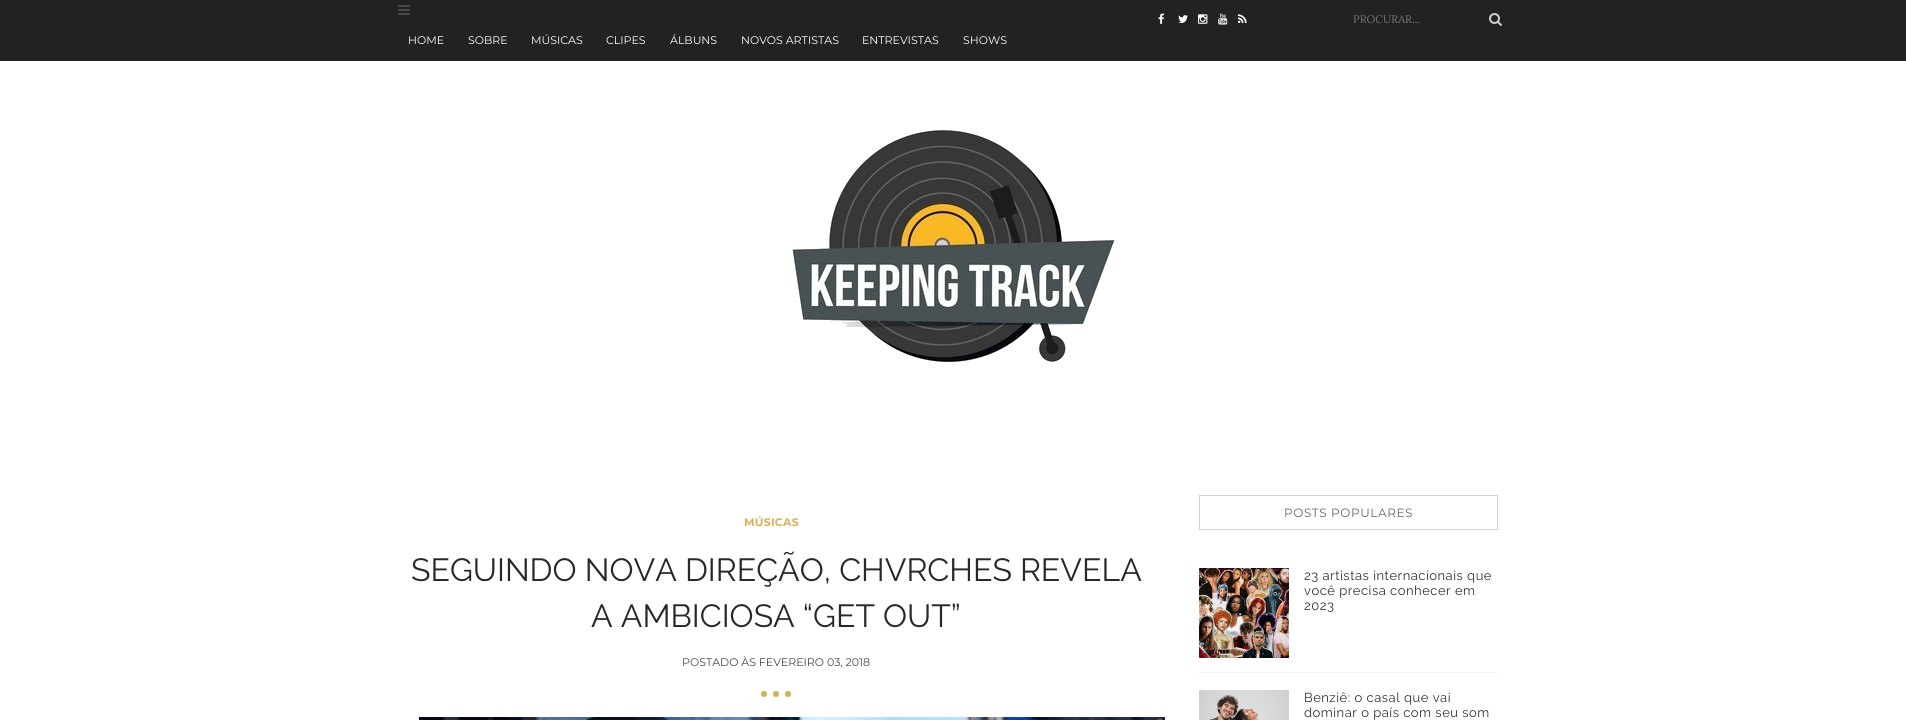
#include <cairo.h>
#include <math.h>
#include <stddef.h>

typedef struct { double x, y; const char *s; } line_t;

static void ink(cairo_t *ctx, unsigned color) {
    cairo_set_source_rgb(ctx, (color >> 16) / 255.0, (color >> 8 & 255) / 255.0, (color & 255) / 255.0);
}

static void write_spaced(cairo_t *ctx, double x, double y, const char *s, double letter, double word) {
    cairo_move_to(ctx, x, y);
    while (*s) {
        char ch[5] = {0};
        int n = 0;
        do ch[n++] = *s++; while ((*s & 0xC0) == 0x80);
        cairo_show_text(ctx, ch);
        cairo_rel_move_to(ctx, letter + word * (*ch == ' '), 0);
    }
}

static void paste(cairo_t *ctx, const char *path, double x, double y, double w, double h) {
    cairo_surface_t *image = cairo_image_surface_create_from_png(path);
    cairo_save(ctx);
    cairo_set_source_surface(ctx, image, x, y);
    cairo_rectangle(ctx, x, y, w, h);
    cairo_fill(ctx);
    cairo_restore(ctx);
    cairo_surface_destroy(image);
}

int main(void) {
    cairo_surface_t *surface = cairo_image_surface_create(CAIRO_FORMAT_RGB24, 1906, 720);
    cairo_t *ctx = cairo_create(surface);
    cairo_font_options_t *options = cairo_font_options_create();
    cairo_font_options_set_hint_metrics(options, CAIRO_HINT_METRICS_OFF);
    cairo_font_options_set_hint_style(options, CAIRO_HINT_STYLE_NONE);
    cairo_set_font_options(ctx, options);
    cairo_set_miter_limit(ctx, 4);
    ink(ctx, 0xFFFFFF);
    cairo_paint(ctx);
    ink(ctx, 0x222222);
    cairo_rectangle(ctx, 0, 0, 1906, 61);
    cairo_fill(ctx);
    paste(ctx, "media/1.png", 1158, 13, 6, 11);
    paste(ctx, "media/2.png", 1178, 15, 10, 8);
    paste(ctx, "media/3.png", 1198, 14, 10, 10);
    paste(ctx, "media/4.png", 1218, 13, 10, 12);
    paste(ctx, "media/5.png", 1238, 14, 9, 9);
    cairo_select_font_face(ctx, "Lora", CAIRO_FONT_SLANT_NORMAL, CAIRO_FONT_WEIGHT_NORMAL);
    cairo_set_font_size(ctx, 11);
    ink(ctx, 0x757575);
    cairo_move_to(ctx, 1353, 23);
    cairo_show_text(ctx, "PROCURAR...");
    paste(ctx, "media/6.png", 1489, 13, 13, 13);
    paste(ctx, "media/7.png", 398, 5, 12, 10);
    cairo_select_font_face(ctx, "Montserrat", CAIRO_FONT_SLANT_NORMAL, CAIRO_FONT_WEIGHT_NORMAL);
    ink(ctx, 0xFFFFFF);
    {
        static const line_t items[] = {
            {408, 44, "HOME"},
            {468, 44, "SOBRE"},
            {531, 44, "MÚSICAS"},
            {606, 44, "CLIPES"},
            {670, 44, "ÁLBUNS"},
            {741, 44, "NOVOS ARTISTAS"},
            {862, 44, "ENTREVISTAS"},
            {963, 44, "SHOWS"},
        };
        for (size_t i = 0; i < sizeof items / sizeof *items; i++) {
            cairo_move_to(ctx, items[i].x, items[i].y);
            cairo_show_text(ctx, items[i].s);
        }
    }
    paste(ctx, "media/8.png", 792, 130, 323, 232);
    cairo_select_font_face(ctx, "Montserrat", CAIRO_FONT_SLANT_NORMAL, CAIRO_FONT_WEIGHT_BOLD);
    ink(ctx, 0xD6B056);
    write_spaced(ctx, 744, 526, "MÚSICAS", 0.25, 0);
    cairo_select_font_face(ctx, "Raleway", CAIRO_FONT_SLANT_NORMAL, CAIRO_FONT_WEIGHT_NORMAL);
    cairo_set_font_size(ctx, 32);
    ink(ctx, 0x282828);
    cairo_move_to(ctx, 411, 581);
    cairo_show_text(ctx, "SEGUINDO NOVA DIREÇÃO, CHVRCHES REVELA");
    cairo_move_to(ctx, 591, 627);
    cairo_show_text(ctx, "A AMBICIOSA “GET OUT”");
    cairo_select_font_face(ctx, "Montserrat", CAIRO_FONT_SLANT_NORMAL, CAIRO_FONT_WEIGHT_NORMAL);
    cairo_set_font_size(ctx, 11);
    ink(ctx, 0x484848);
    cairo_move_to(ctx, 682, 666);
    cairo_show_text(ctx, "POSTADO ÀS FEVEREIRO 03, 2018");
    ink(ctx, 0xD6B056);
    cairo_new_path(ctx);
    cairo_arc(ctx, 764, 694, 3, 0, 2 * M_PI);
    cairo_fill(ctx);
    cairo_arc(ctx, 788, 694, 3, 0, 2 * M_PI);
    cairo_fill(ctx);
    cairo_arc(ctx, 776, 694, 3, 0, 2 * M_PI);
    cairo_fill(ctx);
    paste(ctx, "media/9.png", 419, 717, 746, 3);
    cairo_rectangle(ctx, 1199.5, 495.5, 298, 34);
    ink(ctx, 0xD0D0D0);
    cairo_set_line_width(ctx, 1);
    cairo_stroke(ctx);
    cairo_set_font_size(ctx, 12);
    ink(ctx, 0x666666);
    write_spaced(ctx, 1284, 517, "POSTS POPULARES", 0.6, 0);
    ink(ctx, 0xF1F1F1);
    cairo_rectangle(ctx, 1199, 672, 299, 1);
    cairo_fill(ctx);
    paste(ctx, "media/10.png", 1199, 568, 90, 90);
    cairo_select_font_face(ctx, "Raleway", CAIRO_FONT_SLANT_NORMAL, CAIRO_FONT_WEIGHT_NORMAL);
    cairo_set_font_size(ctx, 13);
    ink(ctx, 0x333333);
    {
        static const line_t items[] = {
            {1304, 580, "23 artistas internacionais que"},
            {1304, 595, "você precisa conhecer em"},
            {1304, 610, "2023"},
        };
        for (size_t i = 0; i < sizeof items / sizeof *items; i++) {
            write_spaced(ctx, items[i].x, items[i].y, items[i].s, 0.5, 0);
        }
    }
    paste(ctx, "media/11.png", 1199, 690, 90, 30);
    write_spaced(ctx, 1304, 702, "Benziê: o casal que vai", 0.5, 0);
    write_spaced(ctx, 1304, 717, "dominar o país com seu som", 0.5, 0);
    cairo_surface_write_to_png(surface, "image.png");
    cairo_font_options_destroy(options);
    cairo_destroy(ctx);
    cairo_surface_destroy(surface);
    return 0;
}
